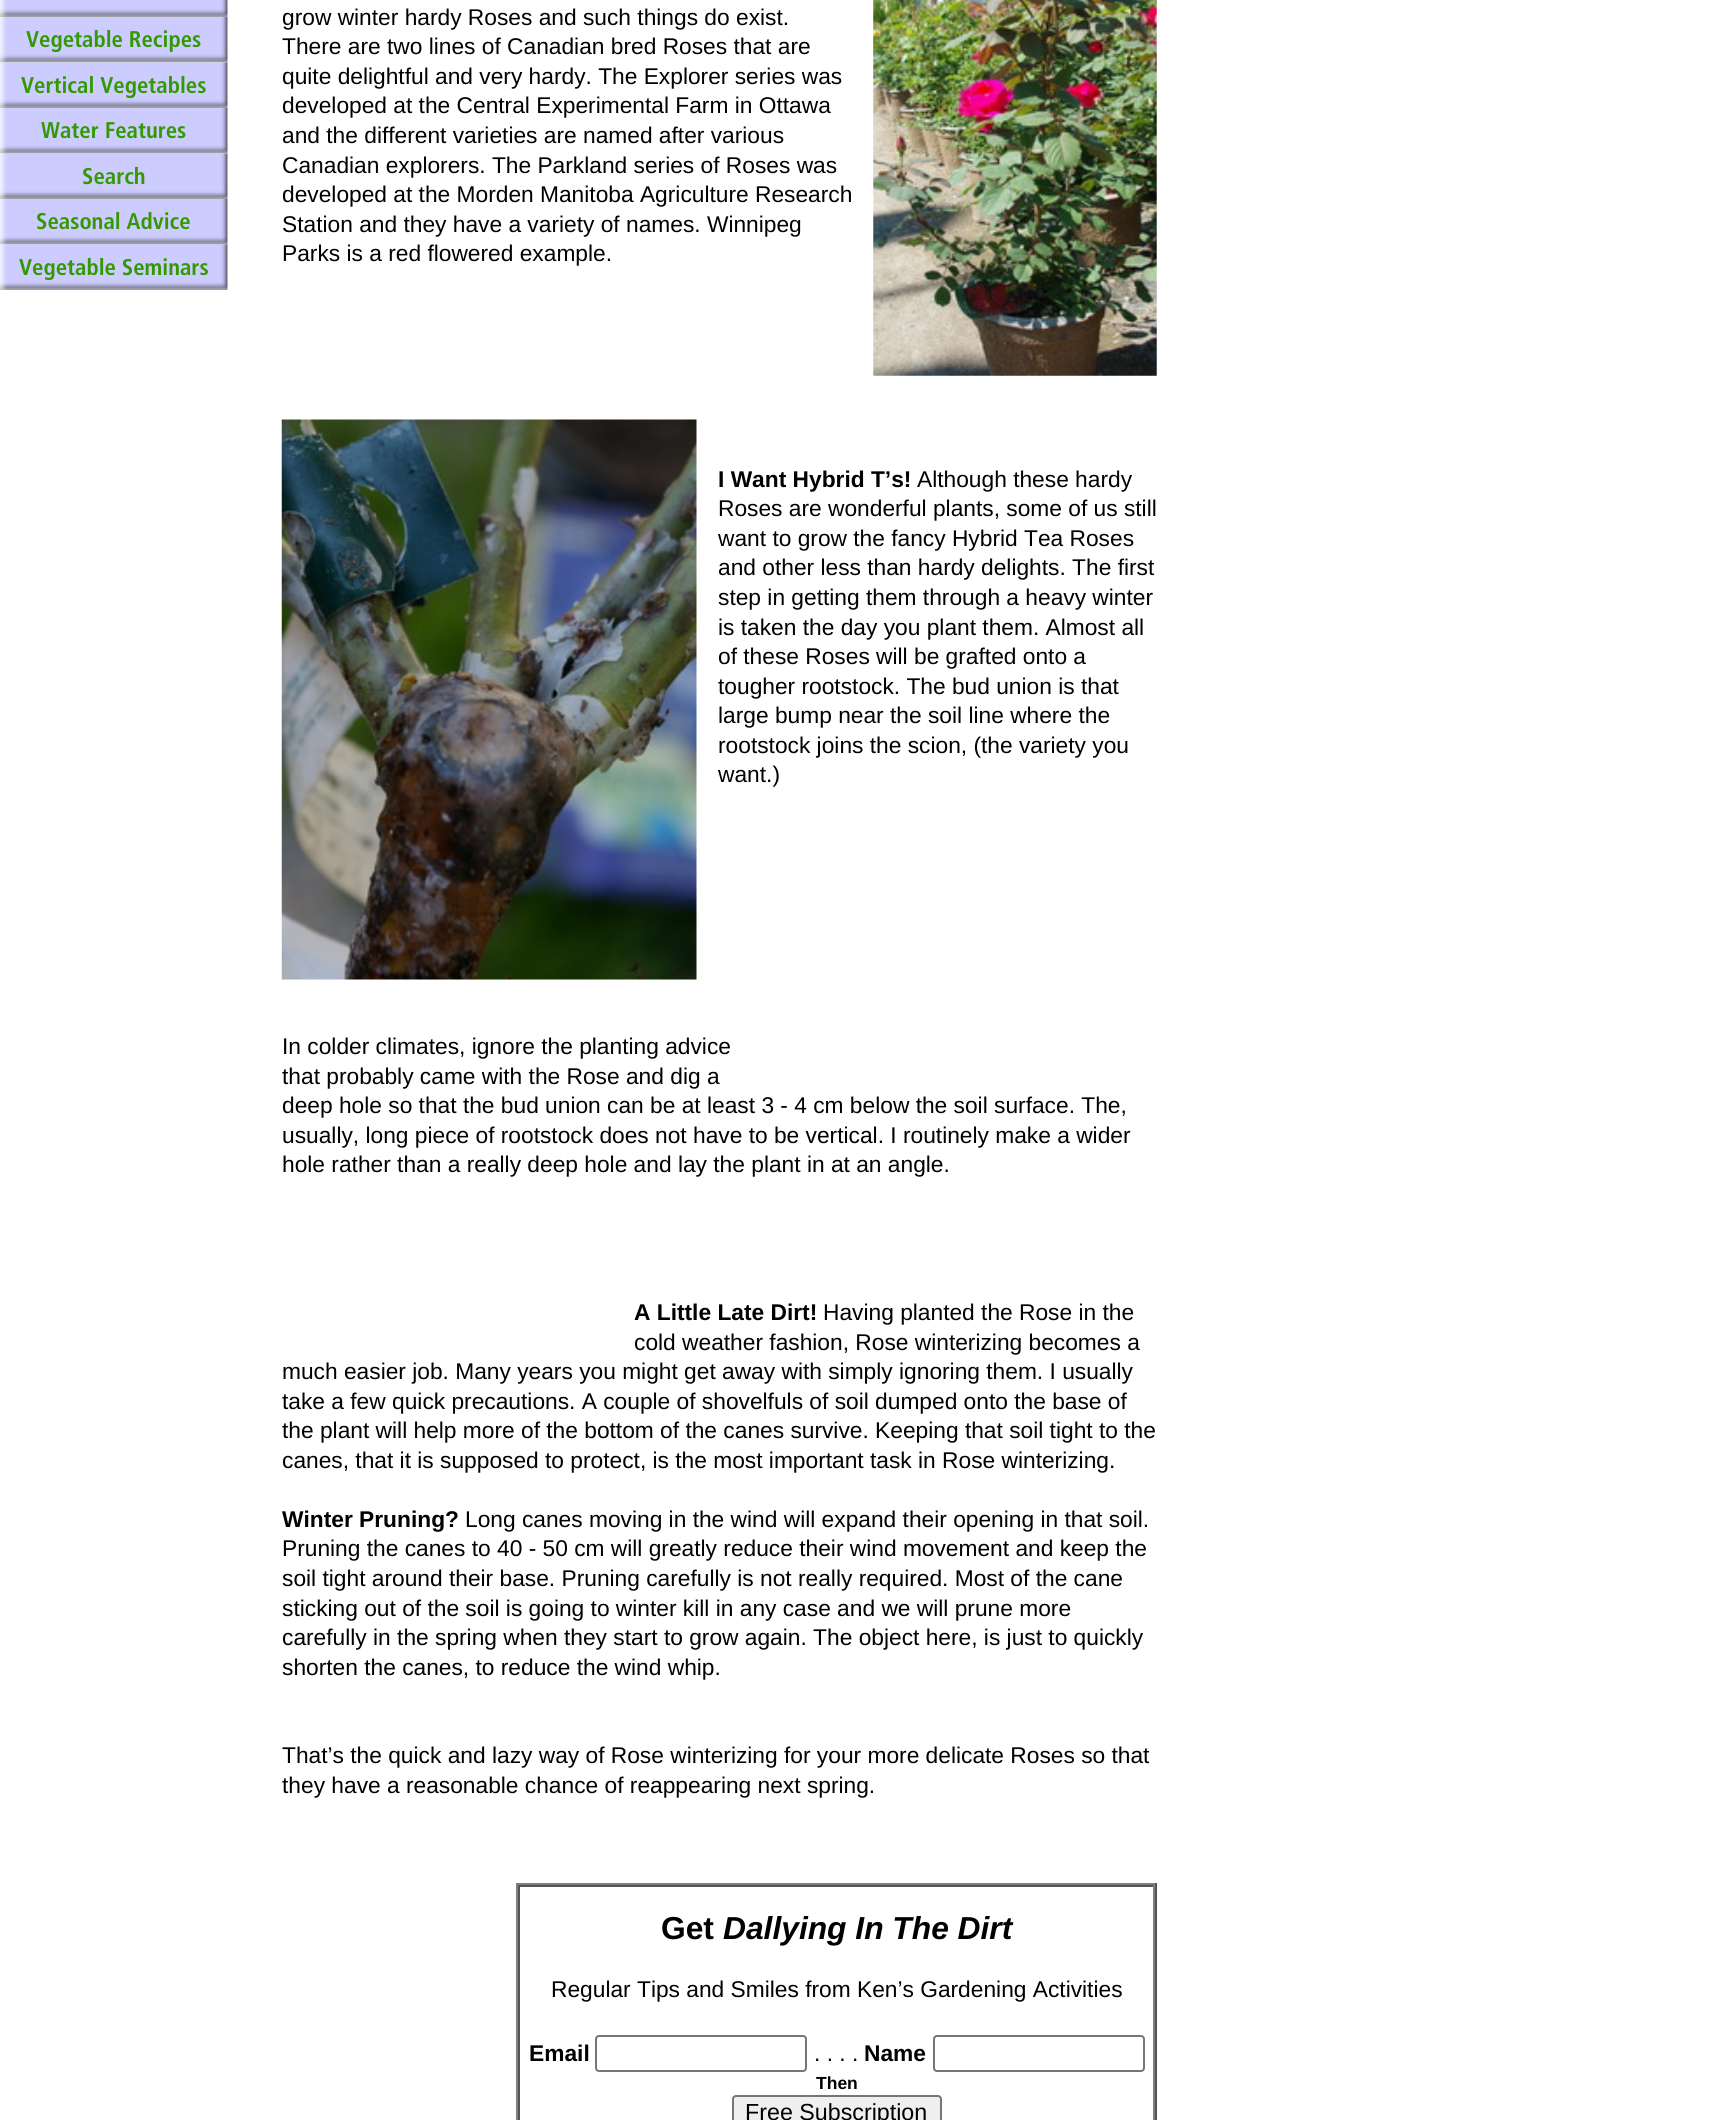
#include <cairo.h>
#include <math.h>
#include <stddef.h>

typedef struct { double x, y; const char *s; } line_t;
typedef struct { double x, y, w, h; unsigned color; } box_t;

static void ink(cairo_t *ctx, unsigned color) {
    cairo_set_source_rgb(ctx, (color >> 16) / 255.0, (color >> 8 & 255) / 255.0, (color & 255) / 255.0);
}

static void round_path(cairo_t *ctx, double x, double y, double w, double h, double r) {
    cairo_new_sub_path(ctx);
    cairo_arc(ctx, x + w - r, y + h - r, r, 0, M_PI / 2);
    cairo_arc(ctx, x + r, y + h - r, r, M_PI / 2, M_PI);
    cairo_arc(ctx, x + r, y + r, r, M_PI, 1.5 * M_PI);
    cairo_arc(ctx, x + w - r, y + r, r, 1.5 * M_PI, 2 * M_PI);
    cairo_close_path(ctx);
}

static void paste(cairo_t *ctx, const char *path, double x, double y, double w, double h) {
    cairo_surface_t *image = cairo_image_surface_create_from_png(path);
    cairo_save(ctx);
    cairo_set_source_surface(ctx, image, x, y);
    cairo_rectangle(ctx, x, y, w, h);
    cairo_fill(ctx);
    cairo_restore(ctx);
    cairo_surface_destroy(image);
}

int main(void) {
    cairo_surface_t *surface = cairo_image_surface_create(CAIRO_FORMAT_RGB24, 1710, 2120);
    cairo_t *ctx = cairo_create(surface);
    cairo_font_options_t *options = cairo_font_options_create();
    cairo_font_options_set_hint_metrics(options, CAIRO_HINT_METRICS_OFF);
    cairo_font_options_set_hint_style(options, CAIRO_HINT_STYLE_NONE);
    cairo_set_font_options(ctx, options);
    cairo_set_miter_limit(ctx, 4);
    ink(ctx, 0xFFFFFF);
    cairo_paint(ctx);
    paste(ctx, "media/1.png", 0, 0, 228, 17);
    paste(ctx, "media/2.png", 0, 17, 228, 46);
    cairo_select_font_face(ctx, "Frutiger", CAIRO_FONT_SLANT_NORMAL, CAIRO_FONT_WEIGHT_NORMAL);
    cairo_set_font_size(ctx, 22.75);
    ink(ctx, 0x339900);
    cairo_move_to(ctx, 26, 47);
    cairo_show_text(ctx, "Vegetable Recipes");
    paste(ctx, "media/3.png", 0, 62, 228, 46);
    cairo_move_to(ctx, 21, 93);
    cairo_show_text(ctx, "Vertical Vegetables");
    paste(ctx, "media/2.png", 0, 108, 228, 46);
    cairo_move_to(ctx, 41, 138);
    cairo_show_text(ctx, "Water Features");
    paste(ctx, "media/3.png", 0, 153, 228, 46);
    cairo_move_to(ctx, 82, 184);
    cairo_show_text(ctx, "Search");
    paste(ctx, "media/2.png", 0, 199, 228, 46);
    cairo_move_to(ctx, 36, 229);
    cairo_show_text(ctx, "Seasonal Advice");
    paste(ctx, "media/3.png", 0, 244, 228, 46);
    cairo_move_to(ctx, 19, 275);
    cairo_show_text(ctx, "Vegetable Seminars");
    paste(ctx, "media/4.png", 873, 0, 284, 376);
    cairo_select_font_face(ctx, "Liberation Sans", CAIRO_FONT_SLANT_NORMAL, CAIRO_FONT_WEIGHT_NORMAL);
    ink(ctx, 0x000000);
    {
        static const line_t items[] = {
            {282, 25, "grow winter hardy Roses and such things do exist."},
            {282, 54, "There are two lines of Canadian bred Roses that are"},
            {282, 84, "quite delightful and very hardy. The Explorer series was"},
            {282, 113, "developed at the Central Experimental Farm in Ottawa"},
            {282, 143, "and the different varieties are named after various"},
            {282, 173, "Canadian explorers. The Parkland series of Roses was"},
            {282, 202, "developed at the Morden Manitoba Agriculture Research"},
            {282, 232, "Station and they have a variety of names. Winnipeg"},
            {282, 261, "Parks is a red flowered example."},
        };
        for (size_t i = 0; i < sizeof items / sizeof *items; i++) {
            cairo_move_to(ctx, items[i].x, items[i].y);
            cairo_show_text(ctx, items[i].s);
        }
    }
    paste(ctx, "media/5.png", 281, 419, 416, 561);
    cairo_select_font_face(ctx, "Liberation Sans", CAIRO_FONT_SLANT_NORMAL, CAIRO_FONT_WEIGHT_BOLD);
    cairo_move_to(ctx, 718, 487);
    cairo_show_text(ctx, "I Want Hybrid T’s!");
    cairo_select_font_face(ctx, "Liberation Sans", CAIRO_FONT_SLANT_NORMAL, CAIRO_FONT_WEIGHT_NORMAL);
    {
        static const line_t items[] = {
            {917, 487, "Although these hardy"},
            {718, 516, "Roses are wonderful plants, some of us still"},
            {718, 546, "want to grow the fancy Hybrid Tea Roses"},
            {718, 575, "and other less than hardy delights. The first"},
            {718, 605, "step in getting them through a heavy winter"},
            {718, 635, "is taken the day you plant them. Almost all"},
            {718, 664, "of these Roses will be grafted onto a"},
            {718, 694, "tougher rootstock. The bud union is that"},
            {718, 723, "large bump near the soil line where the"},
            {718, 753, "rootstock joins the scion, (the variety you"},
            {718, 782, "want.)"},
            {282, 1054, "In colder climates, ignore the planting advice"},
            {282, 1084, "that probably came with the Rose and dig a"},
            {282, 1113, "deep hole so that the bud union can be at least 3 - 4 cm below the soil surface. The,"},
            {282, 1143, "usually, long piece of rootstock does not have to be vertical. I routinely make a wider"},
            {282, 1172, "hole rather than a really deep hole and lay the plant in at an angle."},
        };
        for (size_t i = 0; i < sizeof items / sizeof *items; i++) {
            cairo_move_to(ctx, items[i].x, items[i].y);
            cairo_show_text(ctx, items[i].s);
        }
    }
    cairo_select_font_face(ctx, "Liberation Sans", CAIRO_FONT_SLANT_NORMAL, CAIRO_FONT_WEIGHT_BOLD);
    cairo_move_to(ctx, 634, 1320);
    cairo_show_text(ctx, "A Little Late Dirt!");
    cairo_select_font_face(ctx, "Liberation Sans", CAIRO_FONT_SLANT_NORMAL, CAIRO_FONT_WEIGHT_NORMAL);
    {
        static const line_t items[] = {
            {823, 1320, "Having planted the Rose in the"},
            {634, 1350, "cold weather fashion, Rose winterizing becomes a"},
            {282, 1379, "much easier job. Many years you might get away with simply ignoring them. I usually"},
            {282, 1409, "take a few quick precautions. A couple of shovelfuls of soil dumped onto the base of"},
            {282, 1438, "the plant will help more of the bottom of the canes survive. Keeping that soil tight to the"},
            {282, 1468, "canes, that it is supposed to protect, is the most important task in Rose winterizing."},
        };
        for (size_t i = 0; i < sizeof items / sizeof *items; i++) {
            cairo_move_to(ctx, items[i].x, items[i].y);
            cairo_show_text(ctx, items[i].s);
        }
    }
    cairo_select_font_face(ctx, "Liberation Sans", CAIRO_FONT_SLANT_NORMAL, CAIRO_FONT_WEIGHT_BOLD);
    cairo_move_to(ctx, 282, 1527);
    cairo_show_text(ctx, "Winter Pruning?");
    cairo_select_font_face(ctx, "Liberation Sans", CAIRO_FONT_SLANT_NORMAL, CAIRO_FONT_WEIGHT_NORMAL);
    {
        static const line_t items[] = {
            {465, 1527, "Long canes moving in the wind will expand their opening in that soil."},
            {282, 1556, "Pruning the canes to 40 - 50 cm will greatly reduce their wind movement and keep the"},
            {282, 1586, "soil tight around their base. Pruning carefully is not really required. Most of the cane"},
            {282, 1616, "sticking out of the soil is going to winter kill in any case and we will prune more"},
            {282, 1645, "carefully in the spring when they start to grow again. The object here, is just to quickly"},
            {282, 1675, "shorten the canes, to reduce the wind whip."},
            {282, 1763, "That’s the quick and lazy way of Rose winterizing for your more delicate Roses so that"},
            {282, 1793, "they have a reasonable chance of reappearing next spring."},
        };
        for (size_t i = 0; i < sizeof items / sizeof *items; i++) {
            cairo_move_to(ctx, items[i].x, items[i].y);
            cairo_show_text(ctx, items[i].s);
        }
    }
    {
        static const box_t items[] = {
            {516, 1883, 641, 2, 0x808080},
            {1155, 1883, 2, 237, 0x555555},
            {516, 1883, 2, 237, 0x808080},
            {518, 1885, 637, 2, 0x555555},
            {1153, 1885, 2, 235, 0x808080},
            {518, 1885, 2, 235, 0x555555},
        };
        for (size_t i = 0; i < sizeof items / sizeof *items; i++) {
            ink(ctx, items[i].color);
            cairo_rectangle(ctx, items[i].x, items[i].y, items[i].w, items[i].h);
            cairo_fill(ctx);
        }
    }
    cairo_select_font_face(ctx, "Liberation Sans", CAIRO_FONT_SLANT_NORMAL, CAIRO_FONT_WEIGHT_BOLD);
    cairo_set_font_size(ctx, 31.75);
    ink(ctx, 0x000000);
    cairo_move_to(ctx, 661, 1939);
    cairo_show_text(ctx, "Get");
    cairo_select_font_face(ctx, "Liberation Sans", CAIRO_FONT_SLANT_ITALIC, CAIRO_FONT_WEIGHT_BOLD);
    cairo_move_to(ctx, 723, 1939);
    cairo_show_text(ctx, "Dallying In The Dirt");
    cairo_select_font_face(ctx, "Liberation Sans", CAIRO_FONT_SLANT_NORMAL, CAIRO_FONT_WEIGHT_NORMAL);
    cairo_set_font_size(ctx, 22.75);
    cairo_move_to(ctx, 551, 1997);
    cairo_show_text(ctx, "Regular Tips and Smiles from Ken’s Gardening Activities");
    cairo_select_font_face(ctx, "Liberation Sans", CAIRO_FONT_SLANT_NORMAL, CAIRO_FONT_WEIGHT_BOLD);
    cairo_move_to(ctx, 529, 2061);
    cairo_show_text(ctx, "Email");
    round_path(ctx, 596, 2036, 210, 35, 3);
    ink(ctx, 0x767676);
    cairo_stroke(ctx);
    cairo_select_font_face(ctx, "Liberation Sans", CAIRO_FONT_SLANT_NORMAL, CAIRO_FONT_WEIGHT_NORMAL);
    ink(ctx, 0x000000);
    cairo_move_to(ctx, 814, 2061);
    cairo_show_text(ctx, ". . . .");
    cairo_select_font_face(ctx, "Liberation Sans", CAIRO_FONT_SLANT_NORMAL, CAIRO_FONT_WEIGHT_BOLD);
    cairo_move_to(ctx, 864, 2061);
    cairo_show_text(ctx, "Name");
    round_path(ctx, 934, 2036, 210, 35, 3);
    ink(ctx, 0x767676);
    cairo_stroke(ctx);
    cairo_set_font_size(ctx, 17.5);
    ink(ctx, 0x000000);
    cairo_move_to(ctx, 816, 2089);
    cairo_show_text(ctx, "Then");
    ink(ctx, 0xEFEFEF);
    round_path(ctx, 733, 2096, 208, 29, 3);
    cairo_fill_preserve(ctx);
    ink(ctx, 0x767676);
    cairo_stroke(ctx);
    cairo_select_font_face(ctx, "Liberation Sans", CAIRO_FONT_SLANT_NORMAL, CAIRO_FONT_WEIGHT_NORMAL);
    cairo_set_font_size(ctx, 23.25);
    ink(ctx, 0x000000);
    cairo_move_to(ctx, 745, 2120);
    cairo_show_text(ctx, "Free Subscription");
    cairo_surface_write_to_png(surface, "image.png");
    cairo_font_options_destroy(options);
    cairo_destroy(ctx);
    cairo_surface_destroy(surface);
    return 0;
}
